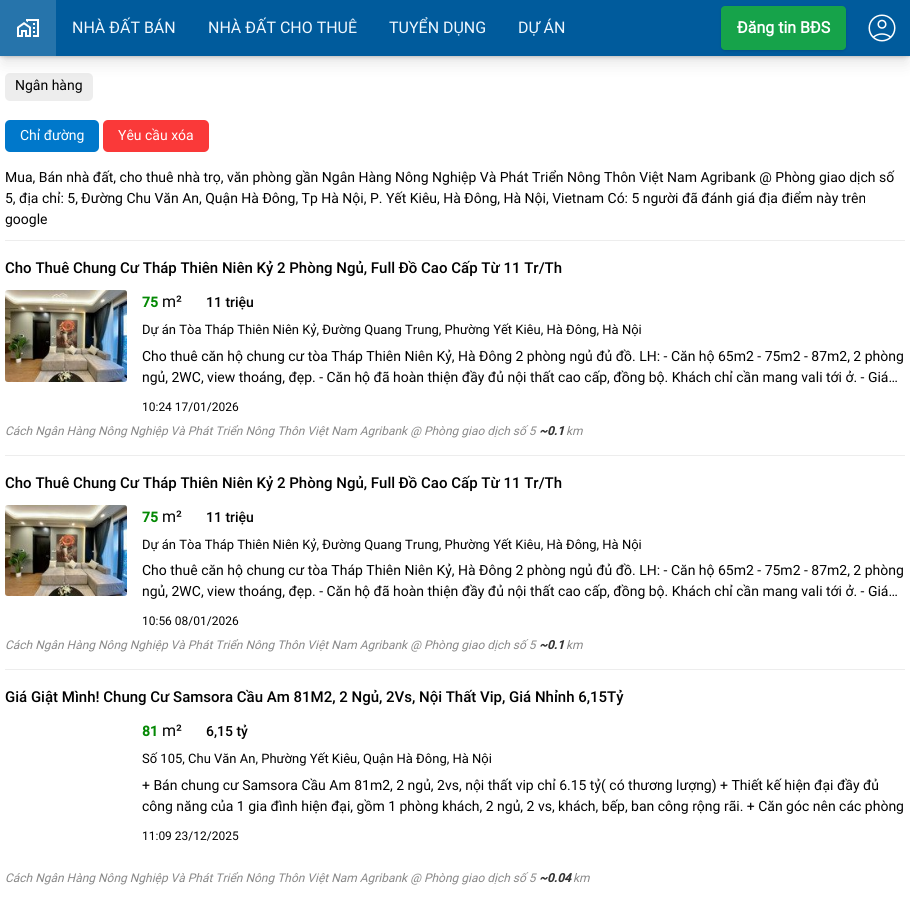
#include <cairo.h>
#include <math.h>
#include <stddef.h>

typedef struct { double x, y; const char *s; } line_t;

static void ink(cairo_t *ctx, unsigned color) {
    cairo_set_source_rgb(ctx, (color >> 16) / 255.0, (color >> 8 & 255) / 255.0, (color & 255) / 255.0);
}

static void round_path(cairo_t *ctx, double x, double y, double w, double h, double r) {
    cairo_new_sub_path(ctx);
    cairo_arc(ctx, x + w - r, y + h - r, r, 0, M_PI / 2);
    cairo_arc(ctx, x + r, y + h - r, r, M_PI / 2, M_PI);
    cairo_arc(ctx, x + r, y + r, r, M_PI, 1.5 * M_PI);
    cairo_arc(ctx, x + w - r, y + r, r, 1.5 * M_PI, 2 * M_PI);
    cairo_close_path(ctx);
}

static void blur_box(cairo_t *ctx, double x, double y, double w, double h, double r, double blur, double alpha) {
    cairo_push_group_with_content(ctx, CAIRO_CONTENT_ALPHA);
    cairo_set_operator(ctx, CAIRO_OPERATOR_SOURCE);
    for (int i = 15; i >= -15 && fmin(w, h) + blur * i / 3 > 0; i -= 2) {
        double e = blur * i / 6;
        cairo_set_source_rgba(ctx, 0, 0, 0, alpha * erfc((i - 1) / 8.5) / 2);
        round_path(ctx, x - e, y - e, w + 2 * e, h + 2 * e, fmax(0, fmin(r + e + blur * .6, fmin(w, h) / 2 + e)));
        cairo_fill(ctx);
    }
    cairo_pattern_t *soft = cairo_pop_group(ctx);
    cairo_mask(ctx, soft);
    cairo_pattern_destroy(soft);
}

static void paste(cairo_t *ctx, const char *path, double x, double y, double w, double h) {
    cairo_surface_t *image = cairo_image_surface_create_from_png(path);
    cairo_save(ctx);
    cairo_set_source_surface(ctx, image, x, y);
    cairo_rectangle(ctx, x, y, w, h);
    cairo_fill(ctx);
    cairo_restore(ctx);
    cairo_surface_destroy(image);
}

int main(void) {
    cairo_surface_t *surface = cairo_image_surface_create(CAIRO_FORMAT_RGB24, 910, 902);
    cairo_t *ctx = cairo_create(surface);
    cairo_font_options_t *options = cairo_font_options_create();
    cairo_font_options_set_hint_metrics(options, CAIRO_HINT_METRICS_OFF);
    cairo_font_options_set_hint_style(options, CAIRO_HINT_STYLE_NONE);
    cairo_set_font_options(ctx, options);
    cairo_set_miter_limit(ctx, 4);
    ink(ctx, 0xFFFFFF);
    cairo_paint(ctx);
    ink(ctx, 0x000000);
    blur_box(ctx, 1, 2, 908, 54, 0, 1, 0.1);
    blur_box(ctx, 0, 1, 910, 56, 0, 1.5, 0.1);
    blur_box(ctx, 4, 8, 902, 48, 0, 3, 0.1);
    ink(ctx, 0xEDEDED);
    round_path(ctx, 5, 73, 88, 28, 5);
    cairo_fill(ctx);
    ink(ctx, 0x000000);
    blur_box(ctx, 3, 13, 904, 50, 0, 7.5, 0.1);
    ink(ctx, 0x005B9C);
    cairo_rectangle(ctx, 56, 0, 854, 56);
    cairo_fill(ctx);
    ink(ctx, 0x2674AB);
    cairo_rectangle(ctx, 0, 0, 56, 56);
    cairo_fill(ctx);
    paste(ctx, "media/1.png", 17, 19, 22, 18);
    cairo_select_font_face(ctx, "Roboto", CAIRO_FONT_SLANT_NORMAL, CAIRO_FONT_WEIGHT_NORMAL);
    cairo_set_font_size(ctx, 16);
    ink(ctx, 0xF0F8FF);
    {
        static const line_t items[] = {
            {72, 33, "NHÀ ĐẤT BÁN"},
            {208, 33, "NHÀ ĐẤT CHO THUÊ"},
            {389, 33, "TUYỂN DỤNG"},
            {518, 33, "DỰ ÁN"},
        };
        for (size_t i = 0; i < sizeof items / sizeof *items; i++) {
            cairo_move_to(ctx, items[i].x, items[i].y);
            cairo_show_text(ctx, items[i].s);
        }
    }
    ink(ctx, 0x000000);
    blur_box(ctx, 722, 8, 123, 42, 3, 1, 0.1);
    blur_box(ctx, 721, 7, 125, 44, 4, 1.5, 0.1);
    ink(ctx, 0x16A34A);
    round_path(ctx, 721, 6, 125, 44, 4);
    cairo_fill(ctx);
    cairo_select_font_face(ctx, "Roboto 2", CAIRO_FONT_SLANT_NORMAL, CAIRO_FONT_WEIGHT_BOLD);
    ink(ctx, 0xFFFFFF);
    cairo_move_to(ctx, 737, 33);
    cairo_show_text(ctx, "Đăng tin BĐS");
    paste(ctx, "media/2.png", 868, 14, 28, 28);
    cairo_select_font_face(ctx, "Roboto", CAIRO_FONT_SLANT_NORMAL, CAIRO_FONT_WEIGHT_NORMAL);
    cairo_set_font_size(ctx, 14);
    ink(ctx, 0x000000);
    cairo_move_to(ctx, 15, 90);
    cairo_show_text(ctx, "Ngân hàng");
    ink(ctx, 0x0078CB);
    round_path(ctx, 5, 120, 94, 32, 5);
    cairo_fill(ctx);
    ink(ctx, 0xFFFFFF);
    cairo_move_to(ctx, 20, 140);
    cairo_show_text(ctx, "Chỉ đường");
    ink(ctx, 0xFA3939);
    round_path(ctx, 103, 120, 106, 32, 5);
    cairo_fill(ctx);
    ink(ctx, 0xFFFFFF);
    cairo_move_to(ctx, 118, 140);
    cairo_show_text(ctx, "Yêu cầu xóa");
    ink(ctx, 0x000000);
    {
        static const line_t items[] = {
            {5, 182, "Mua, Bán nhà đất, cho thuê nhà trọ, văn phòng gần Ngân Hàng Nông Nghiệp Và Phát Triển Nông Thôn Việt Nam Agribank @ Phòng giao dịch số"},
            {5, 203, "5, địa chỉ: 5, Đường Chu Văn An, Quận Hà Đông, Tp Hà Nội, P. Yết Kiêu, Hà Đông, Hà Nội, Vietnam Có: 5 người đã đánh giá địa điểm này trên"},
            {5, 224, "google"},
        };
        for (size_t i = 0; i < sizeof items / sizeof *items; i++) {
            cairo_move_to(ctx, items[i].x, items[i].y);
            cairo_show_text(ctx, items[i].s);
        }
    }
    ink(ctx, 0xEDEDED);
    cairo_rectangle(ctx, 5, 240, 900, 1);
    cairo_fill(ctx);
    cairo_select_font_face(ctx, "Roboto Medium", CAIRO_FONT_SLANT_NORMAL, CAIRO_FONT_WEIGHT_NORMAL);
    cairo_set_font_size(ctx, 15);
    ink(ctx, 0x000000);
    cairo_move_to(ctx, 5, 273);
    cairo_show_text(ctx, "Cho Thuê Chung Cư Tháp Thiên Niên Kỷ 2 Phòng Ngủ, Full Đồ Cao Cấp Từ 11 Tr/Th");
    paste(ctx, "media/3.png", 5, 290, 122, 92);
    cairo_select_font_face(ctx, "Roboto", CAIRO_FONT_SLANT_NORMAL, CAIRO_FONT_WEIGHT_BOLD);
    cairo_set_font_size(ctx, 14);
    ink(ctx, 0x048904);
    cairo_move_to(ctx, 142, 307);
    cairo_show_text(ctx, "75");
    cairo_select_font_face(ctx, "Roboto", CAIRO_FONT_SLANT_NORMAL, CAIRO_FONT_WEIGHT_NORMAL);
    cairo_set_font_size(ctx, 16);
    ink(ctx, 0x000000);
    cairo_move_to(ctx, 162, 307);
    cairo_show_text(ctx, "m²");
    cairo_select_font_face(ctx, "Roboto Medium", CAIRO_FONT_SLANT_NORMAL, CAIRO_FONT_WEIGHT_NORMAL);
    cairo_set_font_size(ctx, 14);
    cairo_move_to(ctx, 206, 307);
    cairo_show_text(ctx, "11 triệu");
    cairo_select_font_face(ctx, "Roboto", CAIRO_FONT_SLANT_NORMAL, CAIRO_FONT_WEIGHT_NORMAL);
    cairo_set_font_size(ctx, 13);
    cairo_move_to(ctx, 142, 334);
    cairo_show_text(ctx, "Dự án Tòa Tháp Thiên Niên Kỷ, Đường Quang Trung, Phường Yết Kiêu, Hà Đông, Hà Nội");
    cairo_set_font_size(ctx, 14);
    cairo_move_to(ctx, 142, 361);
    cairo_show_text(ctx, "Cho thuê căn hộ chung cư tòa Tháp Thiên Niên Kỷ, Hà Đông 2 phòng ngủ đủ đồ. LH: - Căn hộ 65m2 - 75m2 - 87m2, 2 phòng");
    cairo_move_to(ctx, 142, 382);
    cairo_show_text(ctx, "ngủ, 2WC, view thoáng, đẹp. - Căn hộ đã hoàn thiện đầy đủ nội thất cao cấp, đồng bộ. Khách chỉ cần mang vali tới ở. - Giá…");
    cairo_set_font_size(ctx, 12);
    cairo_move_to(ctx, 142, 411);
    cairo_show_text(ctx, "10:24 17/01/2026");
    cairo_select_font_face(ctx, "Roboto", CAIRO_FONT_SLANT_ITALIC, CAIRO_FONT_WEIGHT_NORMAL);
    ink(ctx, 0x888888);
    cairo_move_to(ctx, 5, 435);
    cairo_show_text(ctx, "Cách Ngân Hàng Nông Nghiệp Và Phát Triển Nông Thôn Việt Nam Agribank @ Phòng giao dịch số 5");
    cairo_select_font_face(ctx, "Roboto", CAIRO_FONT_SLANT_ITALIC, CAIRO_FONT_WEIGHT_BOLD);
    ink(ctx, 0x333333);
    cairo_move_to(ctx, 539, 435);
    cairo_show_text(ctx, "~0.1");
    cairo_select_font_face(ctx, "Roboto", CAIRO_FONT_SLANT_ITALIC, CAIRO_FONT_WEIGHT_NORMAL);
    ink(ctx, 0x888888);
    cairo_move_to(ctx, 566, 435);
    cairo_show_text(ctx, "km");
    ink(ctx, 0xEDEDED);
    cairo_rectangle(ctx, 5, 455, 900, 1);
    cairo_fill(ctx);
    cairo_select_font_face(ctx, "Roboto Medium", CAIRO_FONT_SLANT_NORMAL, CAIRO_FONT_WEIGHT_NORMAL);
    cairo_set_font_size(ctx, 15);
    ink(ctx, 0x000000);
    cairo_move_to(ctx, 5, 488);
    cairo_show_text(ctx, "Cho Thuê Chung Cư Tháp Thiên Niên Kỷ 2 Phòng Ngủ, Full Đồ Cao Cấp Từ 11 Tr/Th");
    paste(ctx, "media/4.png", 5, 505, 122, 91);
    cairo_select_font_face(ctx, "Roboto", CAIRO_FONT_SLANT_NORMAL, CAIRO_FONT_WEIGHT_BOLD);
    cairo_set_font_size(ctx, 14);
    ink(ctx, 0x048904);
    cairo_move_to(ctx, 142, 522);
    cairo_show_text(ctx, "75");
    cairo_select_font_face(ctx, "Roboto", CAIRO_FONT_SLANT_NORMAL, CAIRO_FONT_WEIGHT_NORMAL);
    cairo_set_font_size(ctx, 16);
    ink(ctx, 0x000000);
    cairo_move_to(ctx, 162, 522);
    cairo_show_text(ctx, "m²");
    cairo_select_font_face(ctx, "Roboto Medium", CAIRO_FONT_SLANT_NORMAL, CAIRO_FONT_WEIGHT_NORMAL);
    cairo_set_font_size(ctx, 14);
    cairo_move_to(ctx, 206, 522);
    cairo_show_text(ctx, "11 triệu");
    cairo_select_font_face(ctx, "Roboto", CAIRO_FONT_SLANT_NORMAL, CAIRO_FONT_WEIGHT_NORMAL);
    cairo_set_font_size(ctx, 13);
    cairo_move_to(ctx, 142, 549);
    cairo_show_text(ctx, "Dự án Tòa Tháp Thiên Niên Kỷ, Đường Quang Trung, Phường Yết Kiêu, Hà Đông, Hà Nội");
    cairo_set_font_size(ctx, 14);
    cairo_move_to(ctx, 142, 575);
    cairo_show_text(ctx, "Cho thuê căn hộ chung cư tòa Tháp Thiên Niên Kỷ, Hà Đông 2 phòng ngủ đủ đồ. LH: - Căn hộ 65m2 - 75m2 - 87m2, 2 phòng");
    cairo_move_to(ctx, 142, 596);
    cairo_show_text(ctx, "ngủ, 2WC, view thoáng, đẹp. - Căn hộ đã hoàn thiện đầy đủ nội thất cao cấp, đồng bộ. Khách chỉ cần mang vali tới ở. - Giá…");
    cairo_set_font_size(ctx, 12);
    cairo_move_to(ctx, 142, 625);
    cairo_show_text(ctx, "10:56 08/01/2026");
    cairo_select_font_face(ctx, "Roboto", CAIRO_FONT_SLANT_ITALIC, CAIRO_FONT_WEIGHT_NORMAL);
    ink(ctx, 0x888888);
    cairo_move_to(ctx, 5, 649);
    cairo_show_text(ctx, "Cách Ngân Hàng Nông Nghiệp Và Phát Triển Nông Thôn Việt Nam Agribank @ Phòng giao dịch số 5");
    cairo_select_font_face(ctx, "Roboto", CAIRO_FONT_SLANT_ITALIC, CAIRO_FONT_WEIGHT_BOLD);
    ink(ctx, 0x333333);
    cairo_move_to(ctx, 539, 649);
    cairo_show_text(ctx, "~0.1");
    cairo_select_font_face(ctx, "Roboto", CAIRO_FONT_SLANT_ITALIC, CAIRO_FONT_WEIGHT_NORMAL);
    ink(ctx, 0x888888);
    cairo_move_to(ctx, 566, 649);
    cairo_show_text(ctx, "km");
    ink(ctx, 0xEDEDED);
    cairo_rectangle(ctx, 5, 669, 900, 1);
    cairo_fill(ctx);
    cairo_select_font_face(ctx, "Roboto Medium", CAIRO_FONT_SLANT_NORMAL, CAIRO_FONT_WEIGHT_NORMAL);
    cairo_set_font_size(ctx, 15);
    ink(ctx, 0x000000);
    cairo_move_to(ctx, 5, 702);
    cairo_show_text(ctx, "Giá Giật Mình! Chung Cư Samsora Cầu Am 81M2, 2 Ngủ, 2Vs, Nội Thất Vip, Giá Nhỉnh 6,15Tỷ");
    cairo_select_font_face(ctx, "Roboto", CAIRO_FONT_SLANT_NORMAL, CAIRO_FONT_WEIGHT_BOLD);
    cairo_set_font_size(ctx, 14);
    ink(ctx, 0x048904);
    cairo_move_to(ctx, 142, 736);
    cairo_show_text(ctx, "81");
    cairo_select_font_face(ctx, "Roboto", CAIRO_FONT_SLANT_NORMAL, CAIRO_FONT_WEIGHT_NORMAL);
    cairo_set_font_size(ctx, 16);
    ink(ctx, 0x000000);
    cairo_move_to(ctx, 162, 736);
    cairo_show_text(ctx, "m²");
    cairo_select_font_face(ctx, "Roboto Medium", CAIRO_FONT_SLANT_NORMAL, CAIRO_FONT_WEIGHT_NORMAL);
    cairo_set_font_size(ctx, 14);
    cairo_move_to(ctx, 206, 736);
    cairo_show_text(ctx, "6,15 tỷ");
    cairo_select_font_face(ctx, "Roboto", CAIRO_FONT_SLANT_NORMAL, CAIRO_FONT_WEIGHT_NORMAL);
    cairo_set_font_size(ctx, 13);
    cairo_move_to(ctx, 142, 763);
    cairo_show_text(ctx, "Số 105, Chu Văn An, Phường Yết Kiêu, Quận Hà Đông, Hà Nội");
    cairo_set_font_size(ctx, 14);
    cairo_move_to(ctx, 142, 790);
    cairo_show_text(ctx, "+ Bán chung cư Samsora Cầu Am 81m2, 2 ngủ, 2vs, nội thất vip chỉ 6.15 tỷ( có thương lượng) + Thiết kế hiện đại đầy đủ");
    cairo_move_to(ctx, 142, 811);
    cairo_show_text(ctx, "công năng của 1 gia đình hiện đại, gồm 1 phòng khách, 2 ngủ, 2 vs, khách, bếp, ban công rộng rãi. + Căn góc nên các phòng");
    cairo_set_font_size(ctx, 12);
    cairo_move_to(ctx, 142, 840);
    cairo_show_text(ctx, "11:09 23/12/2025");
    cairo_select_font_face(ctx, "Roboto", CAIRO_FONT_SLANT_ITALIC, CAIRO_FONT_WEIGHT_NORMAL);
    ink(ctx, 0x888888);
    cairo_move_to(ctx, 5, 882);
    cairo_show_text(ctx, "Cách Ngân Hàng Nông Nghiệp Và Phát Triển Nông Thôn Việt Nam Agribank @ Phòng giao dịch số 5");
    cairo_select_font_face(ctx, "Roboto", CAIRO_FONT_SLANT_ITALIC, CAIRO_FONT_WEIGHT_BOLD);
    ink(ctx, 0x333333);
    cairo_move_to(ctx, 539, 882);
    cairo_show_text(ctx, "~0.04");
    cairo_select_font_face(ctx, "Roboto", CAIRO_FONT_SLANT_ITALIC, CAIRO_FONT_WEIGHT_NORMAL);
    ink(ctx, 0x888888);
    cairo_move_to(ctx, 573, 882);
    cairo_show_text(ctx, "km");
    cairo_surface_write_to_png(surface, "image.png");
    cairo_font_options_destroy(options);
    cairo_destroy(ctx);
    cairo_surface_destroy(surface);
    return 0;
}
